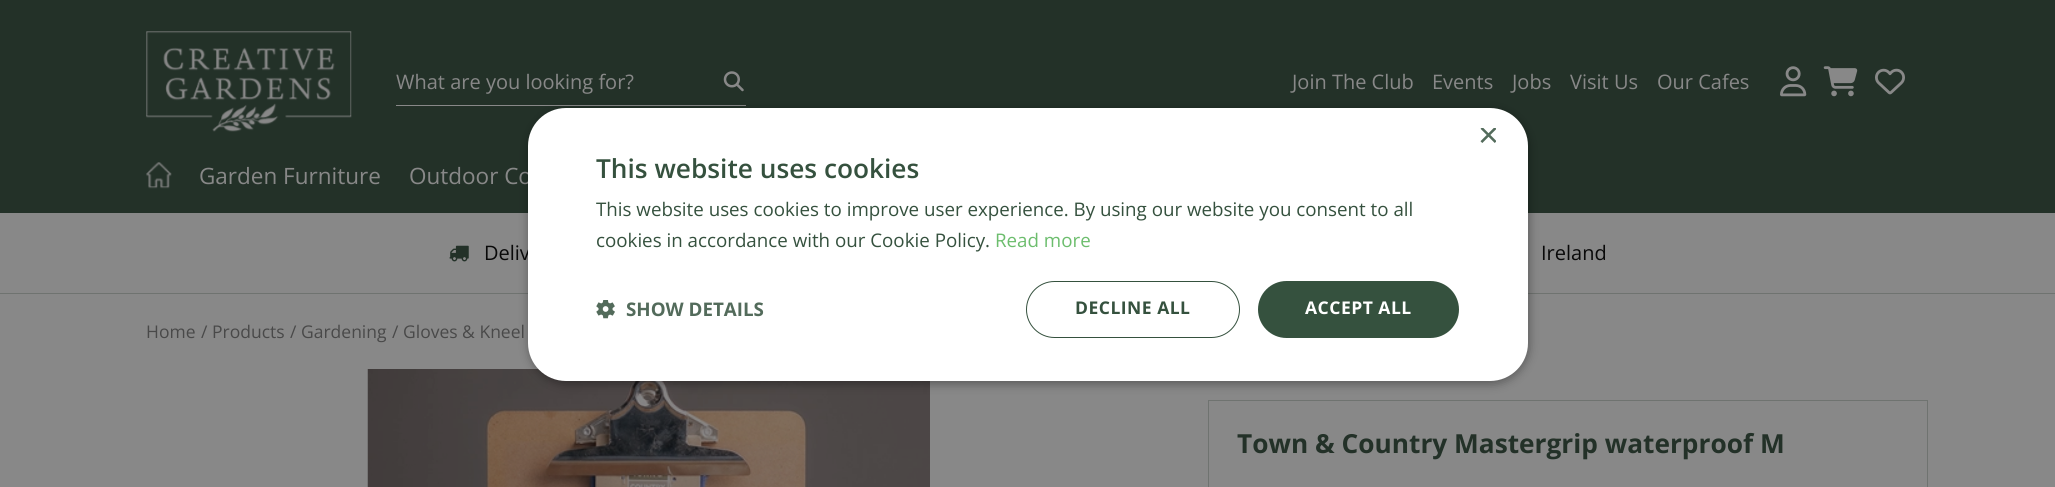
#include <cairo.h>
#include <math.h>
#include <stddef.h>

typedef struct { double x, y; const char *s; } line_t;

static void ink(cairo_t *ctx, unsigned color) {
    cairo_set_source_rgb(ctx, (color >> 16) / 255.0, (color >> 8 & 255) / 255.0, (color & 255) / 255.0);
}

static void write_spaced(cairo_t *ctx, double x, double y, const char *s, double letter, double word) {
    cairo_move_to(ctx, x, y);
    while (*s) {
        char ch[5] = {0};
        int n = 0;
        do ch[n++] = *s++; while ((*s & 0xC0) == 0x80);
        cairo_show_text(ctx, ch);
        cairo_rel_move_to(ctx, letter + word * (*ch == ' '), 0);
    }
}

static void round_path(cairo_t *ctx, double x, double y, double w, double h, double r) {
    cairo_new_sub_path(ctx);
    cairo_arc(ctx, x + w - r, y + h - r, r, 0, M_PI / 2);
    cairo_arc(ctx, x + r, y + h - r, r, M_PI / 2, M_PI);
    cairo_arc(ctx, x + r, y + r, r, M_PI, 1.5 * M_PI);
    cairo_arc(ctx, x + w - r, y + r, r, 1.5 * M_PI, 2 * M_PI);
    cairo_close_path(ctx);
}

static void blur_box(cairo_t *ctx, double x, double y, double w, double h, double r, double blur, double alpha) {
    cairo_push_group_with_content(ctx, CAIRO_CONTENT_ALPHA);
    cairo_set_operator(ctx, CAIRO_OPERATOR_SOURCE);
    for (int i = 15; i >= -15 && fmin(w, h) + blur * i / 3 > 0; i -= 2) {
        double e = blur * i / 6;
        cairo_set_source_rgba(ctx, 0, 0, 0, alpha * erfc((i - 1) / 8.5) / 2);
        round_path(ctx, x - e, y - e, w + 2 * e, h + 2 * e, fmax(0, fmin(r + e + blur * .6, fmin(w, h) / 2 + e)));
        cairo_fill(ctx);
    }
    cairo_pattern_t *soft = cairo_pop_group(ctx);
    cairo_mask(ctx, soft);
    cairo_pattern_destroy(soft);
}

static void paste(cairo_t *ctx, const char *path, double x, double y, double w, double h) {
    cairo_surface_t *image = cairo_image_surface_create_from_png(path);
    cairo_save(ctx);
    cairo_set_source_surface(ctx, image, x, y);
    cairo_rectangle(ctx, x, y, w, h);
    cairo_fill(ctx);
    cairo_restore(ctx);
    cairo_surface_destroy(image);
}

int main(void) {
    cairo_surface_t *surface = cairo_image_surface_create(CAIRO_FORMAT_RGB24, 2055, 487);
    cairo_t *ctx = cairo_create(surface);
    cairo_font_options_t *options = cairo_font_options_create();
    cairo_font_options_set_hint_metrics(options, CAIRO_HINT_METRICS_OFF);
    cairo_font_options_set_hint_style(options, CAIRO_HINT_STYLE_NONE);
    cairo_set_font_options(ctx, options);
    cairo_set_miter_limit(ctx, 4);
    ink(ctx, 0x888888);
    cairo_paint(ctx);
    ink(ctx, 0x233128);
    cairo_rectangle(ctx, 0, 0, 2055, 213);
    cairo_fill(ctx);
    paste(ctx, "media/1.png", 146, 31, 206, 101);
    ink(ctx, 0x888888);
    cairo_rectangle(ctx, 396, 105, 350, 1);
    cairo_fill(ctx);
    cairo_select_font_face(ctx, "Open Sans", CAIRO_FONT_SLANT_NORMAL, CAIRO_FONT_WEIGHT_NORMAL);
    cairo_set_font_size(ctx, 20);
    cairo_move_to(ctx, 396, 89);
    cairo_show_text(ctx, "What are you looking for?");
    paste(ctx, "media/2.png", 723, 71, 21, 21);
    {
        static const line_t items[] = {
            {1292, 89, "Join The Club"},
            {1432, 89, "Events"},
            {1512, 89, "Jobs"},
            {1570, 89, "Visit Us"},
            {1657, 89, "Our Cafes"},
        };
        for (size_t i = 0; i < sizeof items / sizeof *items; i++) {
            cairo_move_to(ctx, items[i].x, items[i].y);
            cairo_show_text(ctx, items[i].s);
        }
    }
    paste(ctx, "media/3.png", 1780, 66, 27, 31);
    paste(ctx, "media/4.png", 1823, 66, 35, 31);
    paste(ctx, "media/5.png", 1875, 68, 30, 27);
    paste(ctx, "media/6.png", 146, 162, 26, 27);
    cairo_set_font_size(ctx, 22.5);
    cairo_move_to(ctx, 199, 184);
    cairo_show_text(ctx, "Garden Furniture");
    cairo_move_to(ctx, 409, 184);
    cairo_show_text(ctx, "Outdoor Co");
    paste(ctx, "media/7.png", 367, 369, 563, 118);
    cairo_rectangle(ctx, 1208.5, 400.5, 719, 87);
    ink(ctx, 0x6F7370);
    cairo_set_line_width(ctx, 1);
    cairo_stroke(ctx);
    cairo_select_font_face(ctx, "Open Sans", CAIRO_FONT_SLANT_NORMAL, CAIRO_FONT_WEIGHT_BOLD);
    cairo_set_font_size(ctx, 26.25);
    ink(ctx, 0x233128);
    cairo_move_to(ctx, 1237, 453);
    cairo_show_text(ctx, "Town & Country Mastergrip waterproof M");
    ink(ctx, 0x6F7370);
    cairo_rectangle(ctx, 0, 293, 2055, 1);
    cairo_fill(ctx);
    paste(ctx, "media/8.png", 449, 245, 20, 17);
    cairo_select_font_face(ctx, "Open Sans", CAIRO_FONT_SLANT_NORMAL, CAIRO_FONT_WEIGHT_NORMAL);
    cairo_set_font_size(ctx, 20);
    ink(ctx, 0x090909);
    cairo_move_to(ctx, 484, 260);
    cairo_show_text(ctx, "Deliv");
    cairo_move_to(ctx, 1541, 260);
    cairo_show_text(ctx, "Ireland");
    cairo_set_font_size(ctx, 17.5);
    ink(ctx, 0x494949);
    {
        static const line_t items[] = {
            {146, 338, "Home"},
            {201, 338, "/"},
            {212, 338, "Products"},
            {290, 338, "/"},
            {301, 338, "Gardening"},
            {392, 338, "/"},
            {403, 338, "Gloves & Kneel"},
        };
        for (size_t i = 0; i < sizeof items / sizeof *items; i++) {
            cairo_move_to(ctx, items[i].x, items[i].y);
            cairo_show_text(ctx, items[i].s);
        }
    }
    ink(ctx, 0x000000);
    blur_box(ctx, 529, 110, 1000, 274, 38, 5, 0.35);
    ink(ctx, 0xFFFFFF);
    round_path(ctx, 528, 108, 1000, 273, 38);
    cairo_fill(ctx);
    cairo_save(ctx);
    cairo_rectangle(ctx, 1478, 128, 18, 18);
    cairo_clip(ctx);
    cairo_select_font_face(ctx, "Liberation Sans", CAIRO_FONT_SLANT_NORMAL, CAIRO_FONT_WEIGHT_NORMAL);
    cairo_set_font_size(ctx, 36);
    ink(ctx, 0x536B5B);
    cairo_move_to(ctx, 1478, 147);
    cairo_show_text(ctx, "×");
    cairo_restore(ctx);
    cairo_select_font_face(ctx, "Open Sans SemiBold", CAIRO_FONT_SLANT_NORMAL, CAIRO_FONT_WEIGHT_NORMAL);
    cairo_set_font_size(ctx, 26.25);
    ink(ctx, 0x35513E);
    cairo_move_to(ctx, 596, 178);
    cairo_show_text(ctx, "This website uses cookies");
    cairo_select_font_face(ctx, "Open Sans", CAIRO_FONT_SLANT_NORMAL, CAIRO_FONT_WEIGHT_NORMAL);
    cairo_set_font_size(ctx, 18.75);
    cairo_move_to(ctx, 596, 216);
    cairo_show_text(ctx, "This website uses cookies to improve user experience. By using our website you consent to all");
    cairo_move_to(ctx, 596, 247);
    cairo_show_text(ctx, "cookies in accordance with our Cookie Policy.");
    ink(ctx, 0x6CBD6D);
    cairo_move_to(ctx, 995, 247);
    cairo_show_text(ctx, "Read more");
    paste(ctx, "media/9.png", 596, 300, 19, 19);
    cairo_select_font_face(ctx, "Open Sans", CAIRO_FONT_SLANT_NORMAL, CAIRO_FONT_WEIGHT_BOLD);
    ink(ctx, 0x536B5B);
    cairo_move_to(ctx, 626, 316);
    cairo_show_text(ctx, "SHOW DETAILS");
    round_path(ctx, 1026.5, 281.5, 213, 56, 28);
    ink(ctx, 0x35513E);
    cairo_stroke(ctx);
    cairo_set_font_size(ctx, 17.5);
    write_spaced(ctx, 1075, 314, "DECLINE ALL", 0.5, 0);
    round_path(ctx, 1258, 281, 201, 57, 28.5);
    cairo_fill(ctx);
    ink(ctx, 0xFFFFFF);
    write_spaced(ctx, 1305, 314, "ACCEPT ALL", 0.5, 0);
    cairo_surface_write_to_png(surface, "image.png");
    cairo_font_options_destroy(options);
    cairo_destroy(ctx);
    cairo_surface_destroy(surface);
    return 0;
}
